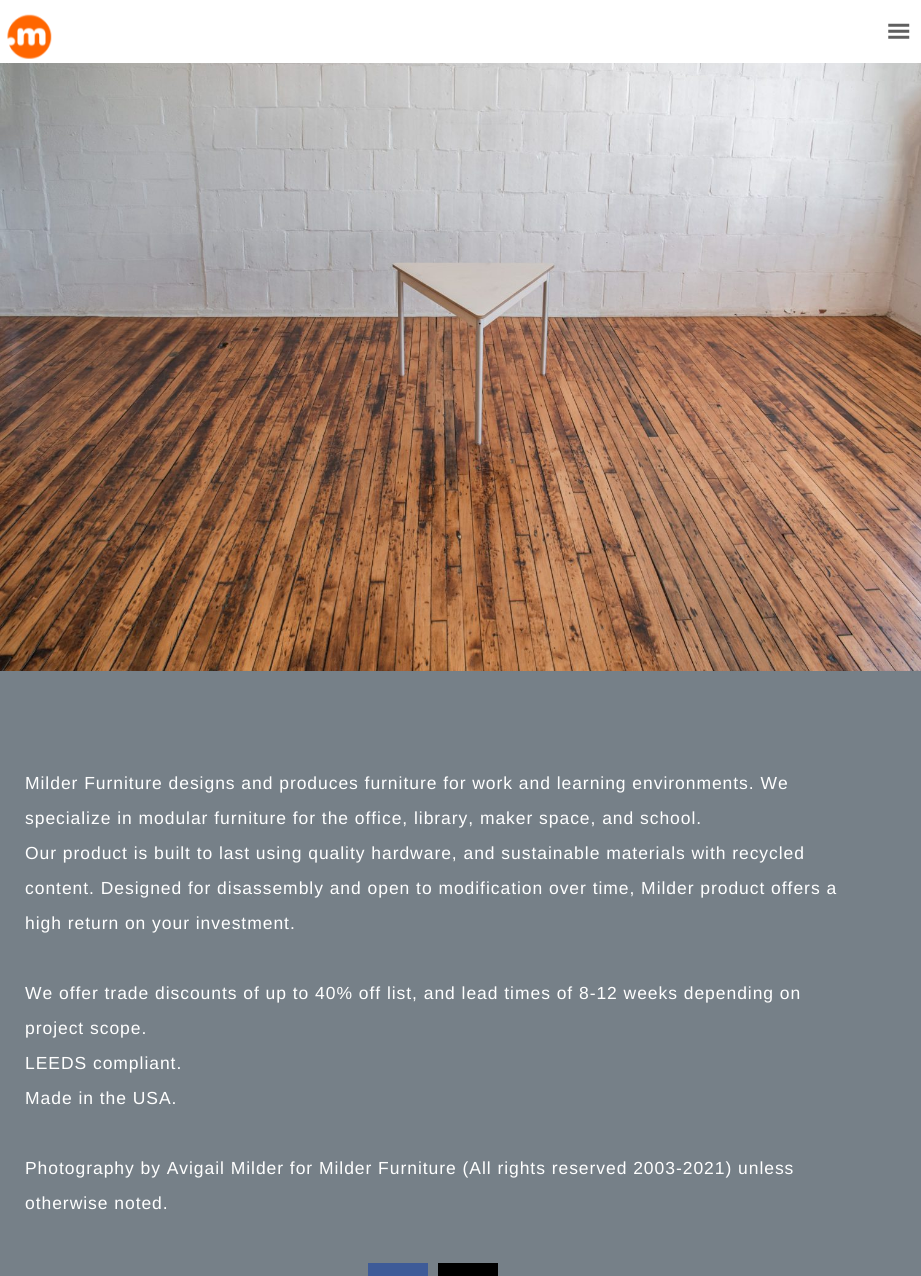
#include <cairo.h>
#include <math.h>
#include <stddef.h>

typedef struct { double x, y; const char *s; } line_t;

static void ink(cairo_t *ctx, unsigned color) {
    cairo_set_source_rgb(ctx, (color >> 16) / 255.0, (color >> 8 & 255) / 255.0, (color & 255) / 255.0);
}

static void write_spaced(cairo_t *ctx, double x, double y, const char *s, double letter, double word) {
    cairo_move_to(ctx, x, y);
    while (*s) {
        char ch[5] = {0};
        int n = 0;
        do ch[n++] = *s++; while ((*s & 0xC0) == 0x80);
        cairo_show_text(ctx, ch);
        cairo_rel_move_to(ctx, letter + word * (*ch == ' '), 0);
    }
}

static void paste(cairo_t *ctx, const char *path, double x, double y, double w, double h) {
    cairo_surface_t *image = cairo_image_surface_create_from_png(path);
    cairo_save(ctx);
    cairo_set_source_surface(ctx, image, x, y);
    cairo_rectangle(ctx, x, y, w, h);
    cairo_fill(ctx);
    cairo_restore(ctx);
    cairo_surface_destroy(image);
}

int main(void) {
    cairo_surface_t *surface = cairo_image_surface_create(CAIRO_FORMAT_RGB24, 921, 1276);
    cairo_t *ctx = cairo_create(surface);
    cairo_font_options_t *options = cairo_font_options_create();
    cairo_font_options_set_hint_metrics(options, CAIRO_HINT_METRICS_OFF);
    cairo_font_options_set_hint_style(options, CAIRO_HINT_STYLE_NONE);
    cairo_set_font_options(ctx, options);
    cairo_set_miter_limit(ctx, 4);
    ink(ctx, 0xFFFFFF);
    cairo_paint(ctx);
    paste(ctx, "media/1.png", 7, 14, 45, 45);
    paste(ctx, "media/2.png", 888, 23, 22, 16);
    paste(ctx, "media/3.png", 0, 63, 921, 608);
    ink(ctx, 0x768088);
    cairo_rectangle(ctx, 0, 671, 921, 605);
    cairo_fill(ctx);
    cairo_select_font_face(ctx, "Liberation Sans", CAIRO_FONT_SLANT_NORMAL, CAIRO_FONT_WEIGHT_NORMAL);
    cairo_set_font_size(ctx, 17.5);
    ink(ctx, 0xFFFFFF);
    {
        static const line_t items[] = {
            {25, 789, "Milder Furniture designs and produces furniture for work and learning environments. We"},
            {25, 824, "specialize in modular furniture for the office, library, maker space, and school."},
            {25, 859, "Our product is built to last using quality hardware, and sustainable materials with recycled"},
            {25, 894, "content. Designed for disassembly and open to modification over time, Milder product offers a"},
            {25, 929, "high return on your investment."},
            {25, 999, "We offer trade discounts of up to 40% off list, and lead times of 8-12 weeks depending on"},
            {25, 1034, "project scope."},
            {25, 1069, "LEEDS compliant."},
            {25, 1104, "Made in the USA."},
            {25, 1174, "Photography by Avigail Milder for Milder Furniture (All rights reserved 2003-2021) unless"},
            {25, 1209, "otherwise noted."},
        };
        for (size_t i = 0; i < sizeof items / sizeof *items; i++) {
            write_spaced(ctx, items[i].x, items[i].y, items[i].s, 0.95, 0);
        }
    }
    ink(ctx, 0x3E5B98);
    cairo_rectangle(ctx, 368, 1263, 60, 13);
    cairo_fill(ctx);
    ink(ctx, 0x000000);
    cairo_rectangle(ctx, 438, 1263, 60, 13);
    cairo_fill(ctx);
    cairo_surface_write_to_png(surface, "image.png");
    cairo_font_options_destroy(options);
    cairo_destroy(ctx);
    cairo_surface_destroy(surface);
    return 0;
}
